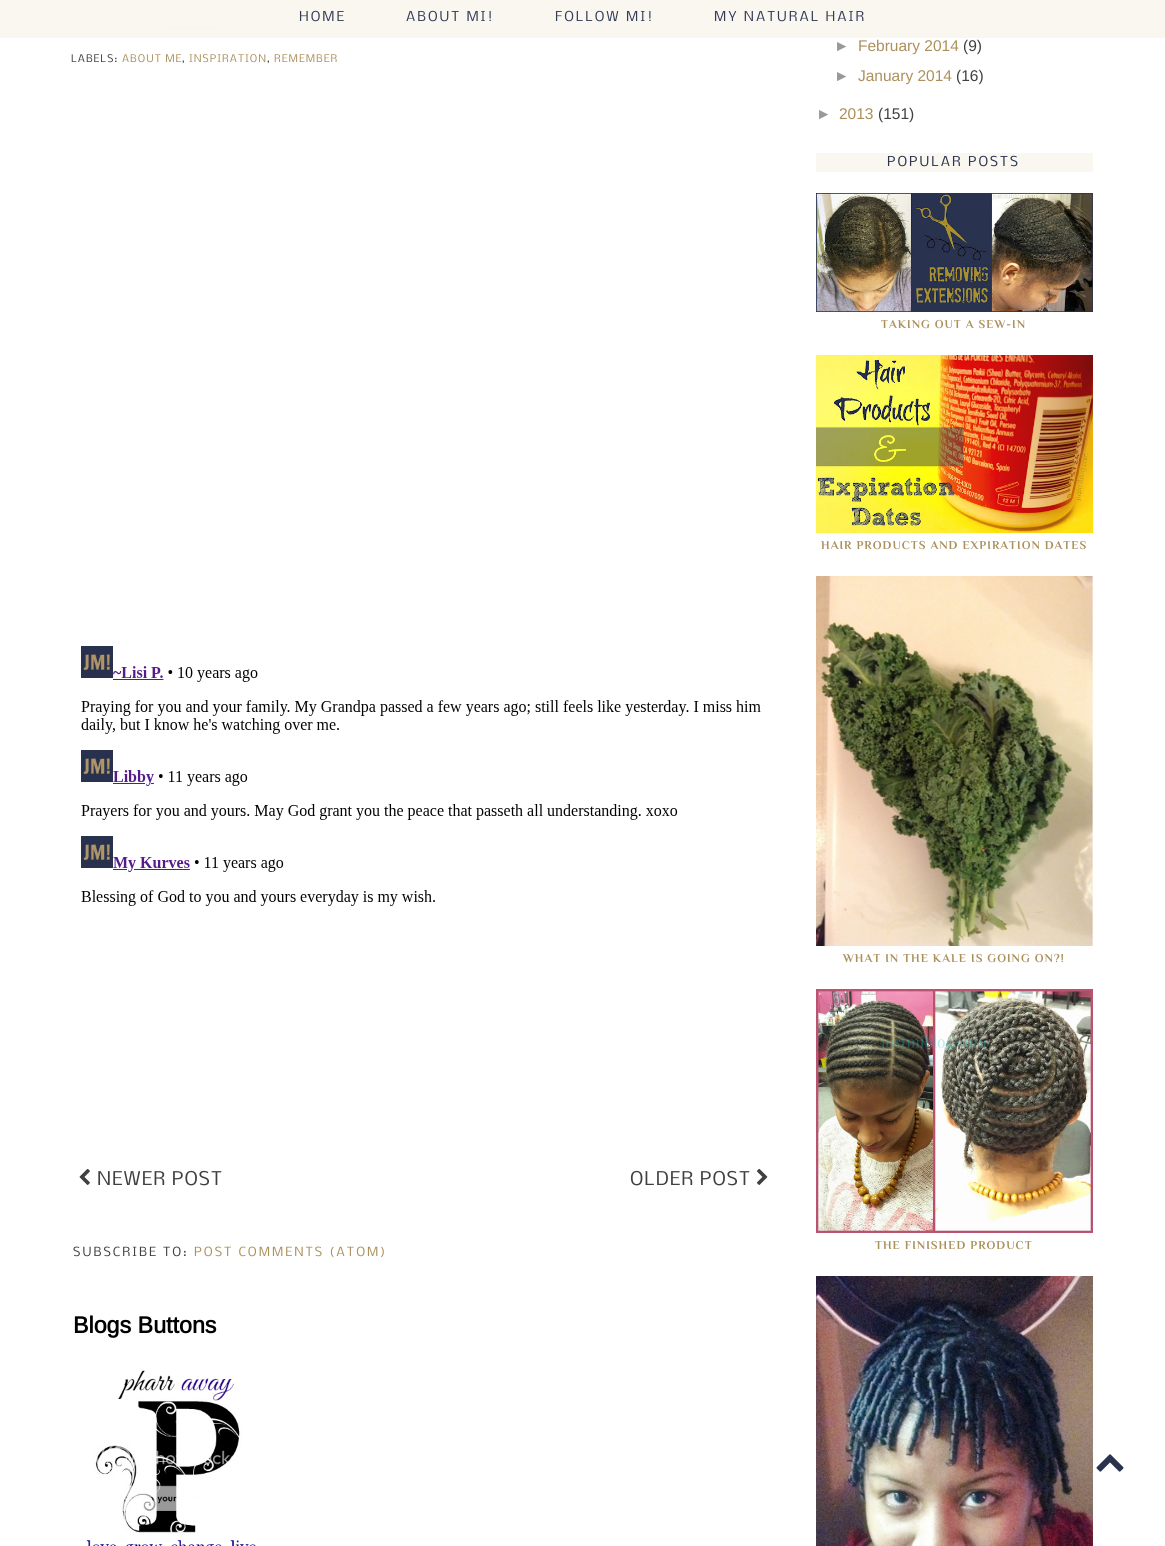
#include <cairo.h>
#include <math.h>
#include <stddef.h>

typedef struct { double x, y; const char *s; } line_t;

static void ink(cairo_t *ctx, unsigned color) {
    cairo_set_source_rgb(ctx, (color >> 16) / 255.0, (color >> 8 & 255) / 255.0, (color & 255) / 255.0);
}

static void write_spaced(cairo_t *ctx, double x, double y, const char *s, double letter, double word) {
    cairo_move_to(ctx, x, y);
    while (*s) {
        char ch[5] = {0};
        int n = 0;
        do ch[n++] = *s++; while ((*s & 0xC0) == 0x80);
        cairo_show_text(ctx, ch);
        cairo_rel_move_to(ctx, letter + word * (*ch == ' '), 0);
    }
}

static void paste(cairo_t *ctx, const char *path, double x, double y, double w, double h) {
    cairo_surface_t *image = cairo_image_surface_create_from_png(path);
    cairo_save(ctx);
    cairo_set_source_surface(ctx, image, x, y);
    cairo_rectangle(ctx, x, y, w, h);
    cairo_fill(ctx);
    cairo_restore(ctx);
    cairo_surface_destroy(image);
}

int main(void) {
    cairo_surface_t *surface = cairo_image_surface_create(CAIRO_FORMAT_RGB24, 1165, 1546);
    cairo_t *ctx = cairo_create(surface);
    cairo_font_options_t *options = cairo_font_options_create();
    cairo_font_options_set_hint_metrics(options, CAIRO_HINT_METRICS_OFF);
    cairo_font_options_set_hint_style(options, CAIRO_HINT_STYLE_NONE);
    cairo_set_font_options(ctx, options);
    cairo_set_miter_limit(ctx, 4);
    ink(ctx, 0xFFFFFF);
    cairo_paint(ctx);
    ink(ctx, 0xFAF7F1);
    cairo_rectangle(ctx, 0, 0, 1165, 38);
    cairo_fill(ctx);
    cairo_select_font_face(ctx, "Nobile", CAIRO_FONT_SLANT_NORMAL, CAIRO_FONT_WEIGHT_NORMAL);
    cairo_set_font_size(ctx, 13);
    ink(ctx, 0x333C57);
    {
        static const line_t items[] = {
            {299, 21, "HOME"},
            {406, 21, "ABOUT MI!"},
            {555, 21, "FOLLOW MI!"},
            {714, 21, "MY NATURAL HAIR"},
        };
        for (size_t i = 0; i < sizeof items / sizeof *items; i++) {
            write_spaced(ctx, items[i].x, items[i].y, items[i].s, 2, 0);
        }
    }
    cairo_new_path(ctx);
    cairo_move_to(ctx, 169, 27.5);
    cairo_line_to(ctx, 216, 27.5);
    ink(ctx, 0xF6F2E9);
    cairo_set_line_width(ctx, 1);
    cairo_set_dash(ctx, (double[]){1, 1}, 2, 0);
    cairo_stroke(ctx);
    cairo_set_font_size(ctx, 10);
    ink(ctx, 0x404040);
    write_spaced(ctx, 71, 62, "LABELS:", 1, 0);
    ink(ctx, 0xAB905B);
    write_spaced(ctx, 122, 62, "ABOUT ME", 1, 0);
    ink(ctx, 0x404040);
    write_spaced(ctx, 182, 62, ",", 1, 0);
    ink(ctx, 0xAB905B);
    write_spaced(ctx, 189, 62, "INSPIRATION", 1, 0);
    ink(ctx, 0x404040);
    write_spaced(ctx, 267, 62, ",", 1, 0);
    ink(ctx, 0xAB905B);
    write_spaced(ctx, 274, 62, "REMEMBER", 1, 0);
    paste(ctx, "media/1.png", 81, 646, 680, 260);
    paste(ctx, "media/2.png", 79, 1169, 11, 16);
    cairo_set_font_size(ctx, 18);
    ink(ctx, 0x404040);
    write_spaced(ctx, 97, 1185, "NEWER POST", 1, 0);
    write_spaced(ctx, 630, 1185, "OLDER POST", 1, 0);
    paste(ctx, "media/3.png", 756, 1169, 12, 16);
    cairo_set_font_size(ctx, 12);
    write_spaced(ctx, 73, 1256, "SUBSCRIBE TO:", 2, 0);
    ink(ctx, 0xAB905B);
    write_spaced(ctx, 194, 1256, "POST COMMENTS (ATOM)", 2, 0);
    cairo_select_font_face(ctx, "Arimo", CAIRO_FONT_SLANT_NORMAL, CAIRO_FONT_WEIGHT_BOLD);
    cairo_set_font_size(ctx, 23.25);
    ink(ctx, 0x000000);
    cairo_move_to(ctx, 73, 1333);
    cairo_show_text(ctx, "Blogs Buttons");
    paste(ctx, "media/4.png", 86, 1370, 170, 176);
    cairo_select_font_face(ctx, "Liberation Sans", CAIRO_FONT_SLANT_NORMAL, CAIRO_FONT_WEIGHT_NORMAL);
    cairo_set_font_size(ctx, 15.5);
    ink(ctx, 0x999999);
    cairo_move_to(ctx, 834, 51);
    cairo_show_text(ctx, "►");
    cairo_select_font_face(ctx, "Arimo", CAIRO_FONT_SLANT_NORMAL, CAIRO_FONT_WEIGHT_NORMAL);
    ink(ctx, 0xAB905B);
    cairo_move_to(ctx, 858, 51);
    cairo_show_text(ctx, "February 2014");
    ink(ctx, 0x404040);
    cairo_move_to(ctx, 963, 51);
    cairo_show_text(ctx, "(9)");
    cairo_select_font_face(ctx, "Liberation Sans", CAIRO_FONT_SLANT_NORMAL, CAIRO_FONT_WEIGHT_NORMAL);
    ink(ctx, 0x999999);
    cairo_move_to(ctx, 834, 81);
    cairo_show_text(ctx, "►");
    cairo_select_font_face(ctx, "Arimo", CAIRO_FONT_SLANT_NORMAL, CAIRO_FONT_WEIGHT_NORMAL);
    ink(ctx, 0xAB905B);
    cairo_move_to(ctx, 858, 81);
    cairo_show_text(ctx, "January 2014");
    ink(ctx, 0x404040);
    cairo_move_to(ctx, 956, 81);
    cairo_show_text(ctx, "(16)");
    cairo_select_font_face(ctx, "Liberation Sans", CAIRO_FONT_SLANT_NORMAL, CAIRO_FONT_WEIGHT_NORMAL);
    ink(ctx, 0x999999);
    cairo_move_to(ctx, 816, 119);
    cairo_show_text(ctx, "►");
    cairo_select_font_face(ctx, "Arimo", CAIRO_FONT_SLANT_NORMAL, CAIRO_FONT_WEIGHT_NORMAL);
    ink(ctx, 0xAB905B);
    cairo_move_to(ctx, 839, 119);
    cairo_show_text(ctx, "2013");
    ink(ctx, 0x404040);
    cairo_move_to(ctx, 878, 119);
    cairo_show_text(ctx, "(151)");
    ink(ctx, 0xFAF7F0);
    cairo_rectangle(ctx, 816, 153, 277, 19);
    cairo_fill(ctx);
    cairo_select_font_face(ctx, "Nobile", CAIRO_FONT_SLANT_NORMAL, CAIRO_FONT_WEIGHT_NORMAL);
    cairo_set_font_size(ctx, 13);
    ink(ctx, 0x29324F);
    write_spaced(ctx, 887, 166, "POPULAR POSTS", 2, 0);
    paste(ctx, "media/5.png", 816, 193, 277, 119);
    cairo_select_font_face(ctx, "Philosopher", CAIRO_FONT_SLANT_NORMAL, CAIRO_FONT_WEIGHT_BOLD);
    cairo_set_font_size(ctx, 12);
    ink(ctx, 0xAB905B);
    write_spaced(ctx, 881, 328, "TAKING OUT A SEW-IN", 1, 0);
    paste(ctx, "media/6.png", 816, 355, 277, 178);
    write_spaced(ctx, 821, 549, "HAIR PRODUCTS AND EXPIRATION DATES", 1, 0);
    paste(ctx, "media/7.png", 816, 576, 277, 370);
    write_spaced(ctx, 843, 962, "WHAT IN THE KALE IS GOING ON?!", 1, 0);
    paste(ctx, "media/8.png", 816, 989, 277, 244);
    write_spaced(ctx, 875, 1249, "THE FINISHED PRODUCT", 1, 0);
    paste(ctx, "media/9.png", 816, 1276, 277, 270);
    paste(ctx, "media/10.png", 1096, 1454, 28, 18);
    cairo_surface_write_to_png(surface, "image.png");
    cairo_font_options_destroy(options);
    cairo_destroy(ctx);
    cairo_surface_destroy(surface);
    return 0;
}
